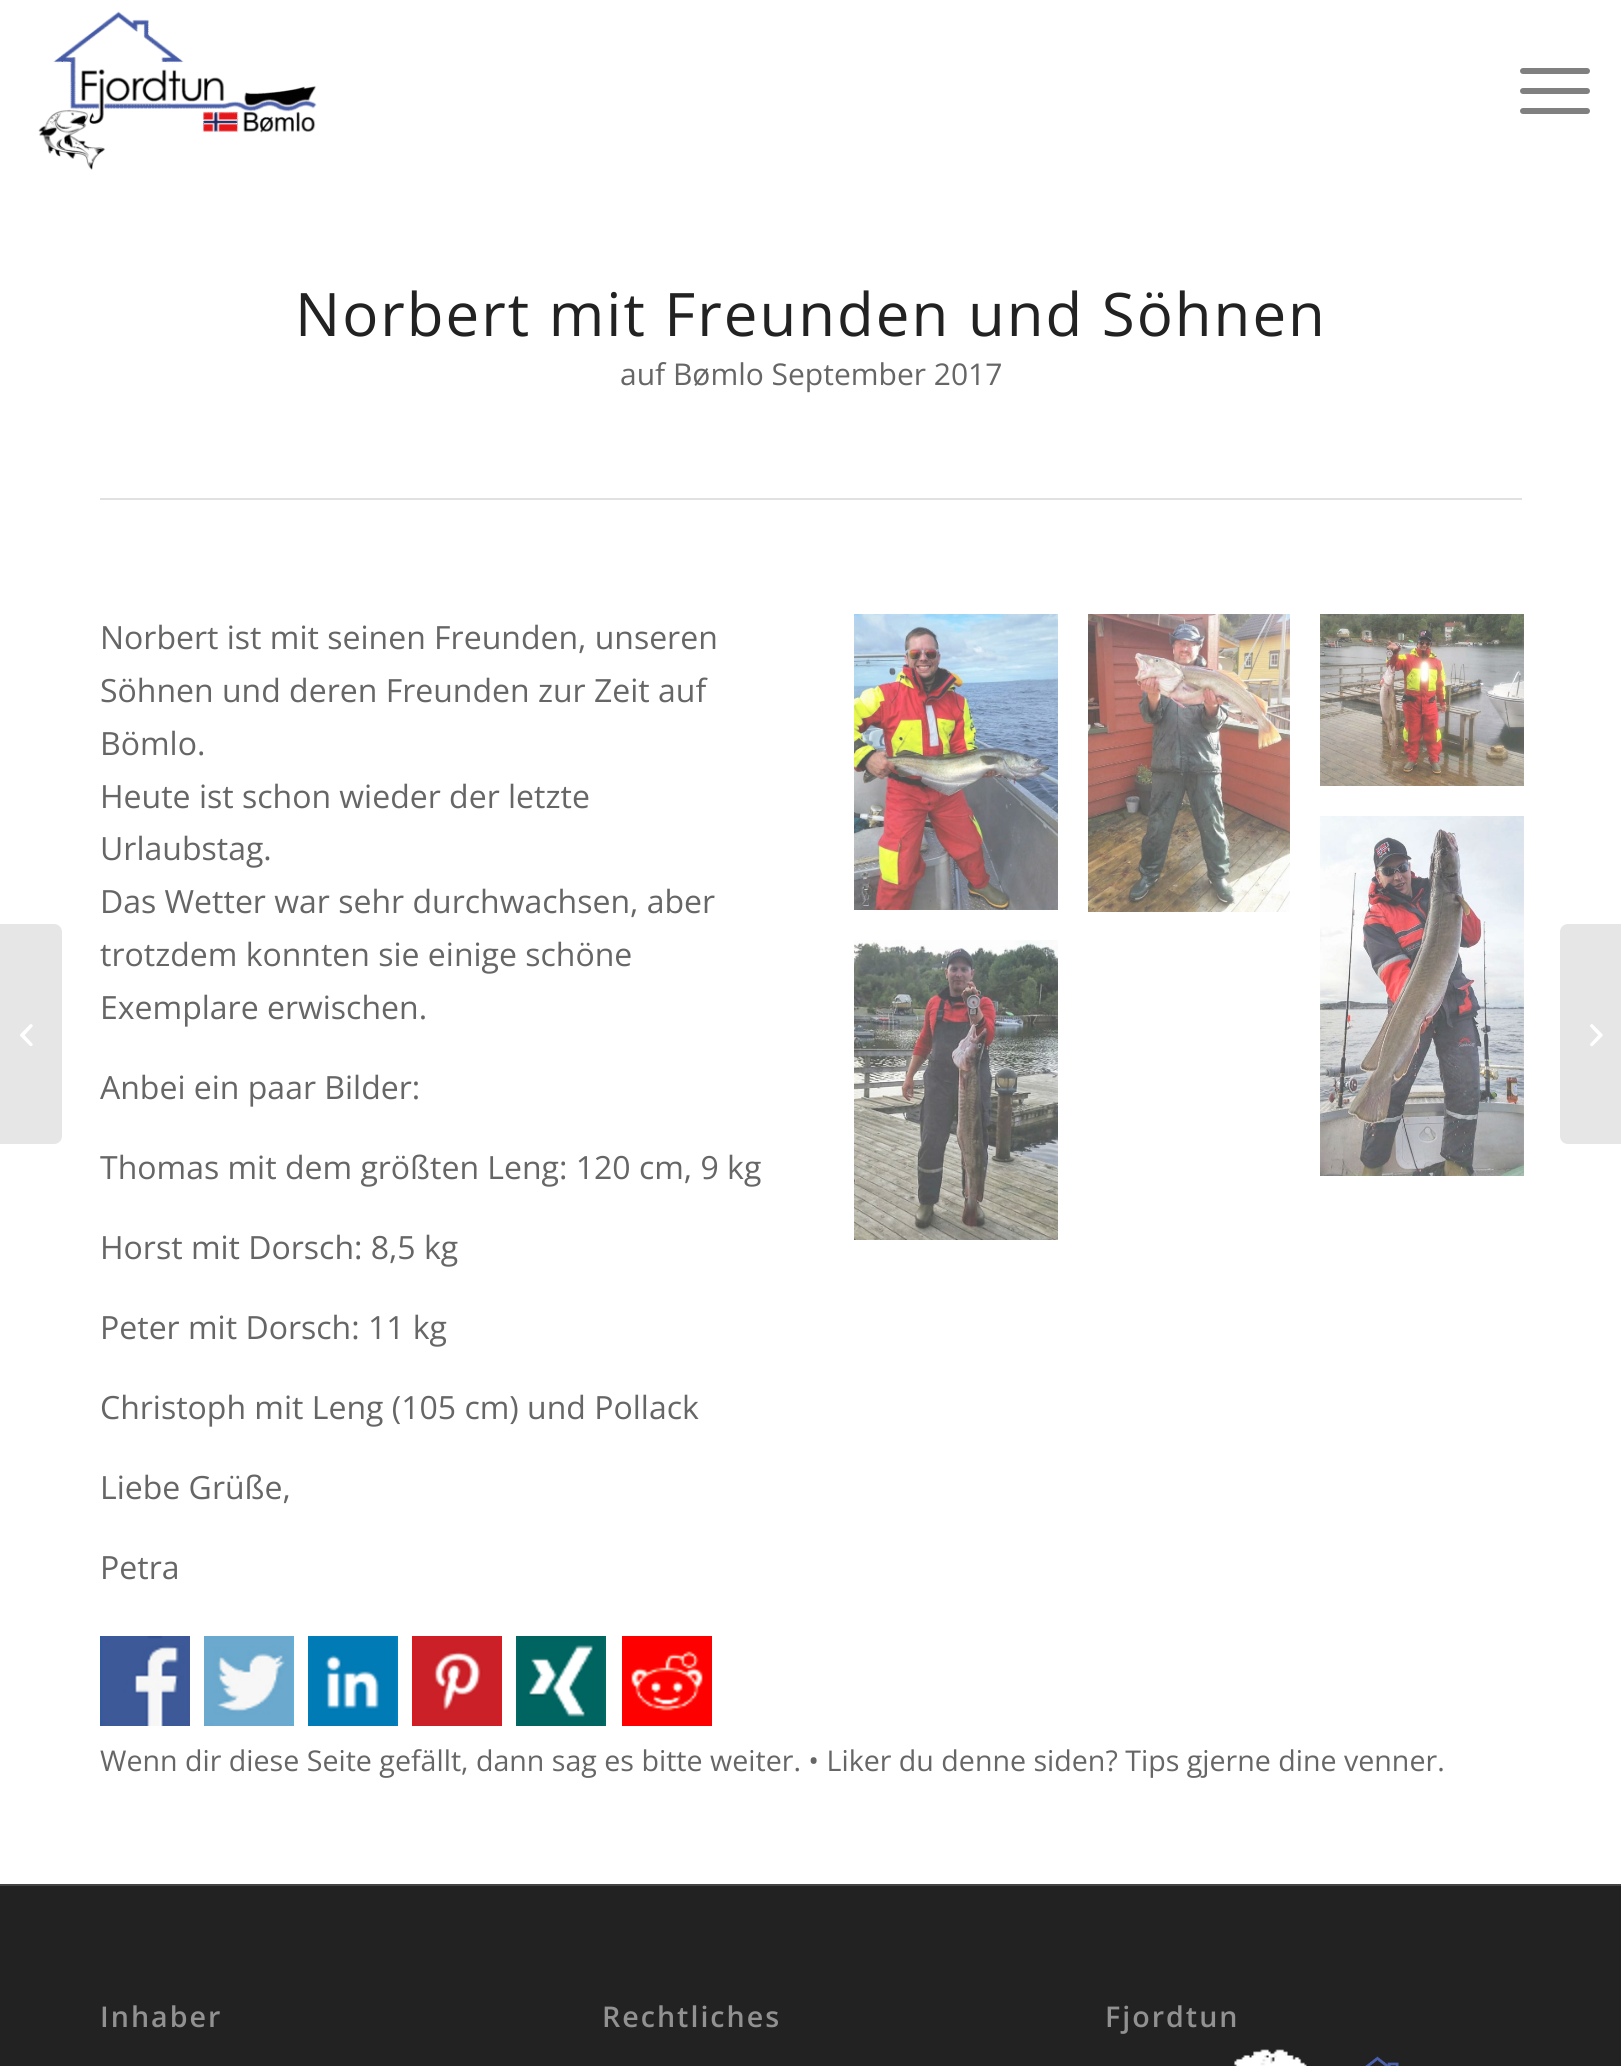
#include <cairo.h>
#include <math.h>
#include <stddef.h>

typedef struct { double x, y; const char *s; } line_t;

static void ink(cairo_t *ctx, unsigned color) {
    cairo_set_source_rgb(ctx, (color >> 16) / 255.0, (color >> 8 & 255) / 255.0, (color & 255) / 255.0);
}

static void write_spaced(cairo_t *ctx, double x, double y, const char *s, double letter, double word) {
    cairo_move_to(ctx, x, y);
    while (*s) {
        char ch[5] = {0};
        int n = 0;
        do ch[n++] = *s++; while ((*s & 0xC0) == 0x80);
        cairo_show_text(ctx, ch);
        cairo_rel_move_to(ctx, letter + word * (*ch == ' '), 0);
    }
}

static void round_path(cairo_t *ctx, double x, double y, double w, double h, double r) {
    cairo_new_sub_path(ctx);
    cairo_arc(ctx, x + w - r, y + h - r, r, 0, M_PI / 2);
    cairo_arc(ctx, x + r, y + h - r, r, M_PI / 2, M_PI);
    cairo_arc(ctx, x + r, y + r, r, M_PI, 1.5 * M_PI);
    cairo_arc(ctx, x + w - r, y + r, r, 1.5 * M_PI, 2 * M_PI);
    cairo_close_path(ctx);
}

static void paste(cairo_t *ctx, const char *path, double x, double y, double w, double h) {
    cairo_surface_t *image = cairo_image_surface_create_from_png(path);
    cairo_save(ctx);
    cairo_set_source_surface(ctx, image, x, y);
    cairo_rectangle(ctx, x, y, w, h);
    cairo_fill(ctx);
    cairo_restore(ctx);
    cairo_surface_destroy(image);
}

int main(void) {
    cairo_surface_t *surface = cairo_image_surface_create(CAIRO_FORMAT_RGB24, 1621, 2066);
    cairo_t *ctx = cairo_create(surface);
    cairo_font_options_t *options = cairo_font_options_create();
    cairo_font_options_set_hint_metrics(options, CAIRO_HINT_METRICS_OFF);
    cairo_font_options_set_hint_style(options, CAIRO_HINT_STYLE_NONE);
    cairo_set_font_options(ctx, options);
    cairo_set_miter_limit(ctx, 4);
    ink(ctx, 0xFFFFFF);
    cairo_paint(ctx);
    paste(ctx, "media/1.png", 38, 11, 279, 159);
    ink(ctx, 0x808080);
    round_path(ctx, 1520, 88, 70, 6, 3);
    cairo_fill(ctx);
    round_path(ctx, 1520, 68, 70, 6, 3);
    cairo_fill(ctx);
    round_path(ctx, 1520, 108, 70, 6, 3);
    cairo_fill(ctx);
    ink(ctx, 0xE6E6E6);
    cairo_new_path(ctx);
    cairo_move_to(ctx, 0, 924);
    cairo_line_to(ctx, 54, 924);
    cairo_curve_to(ctx, 58.5, 924, 62, 927.5, 62, 932);
    cairo_line_to(ctx, 62, 1136);
    cairo_curve_to(ctx, 62, 1140.5, 58.5, 1144, 54, 1144);
    cairo_line_to(ctx, 0, 1144);
    cairo_close_path(ctx);
    cairo_fill(ctx);
    paste(ctx, "media/2.png", 20, 1024, 13, 22);
    cairo_select_font_face(ctx, "Open Sans", CAIRO_FONT_SLANT_NORMAL, CAIRO_FONT_WEIGHT_NORMAL);
    cairo_set_font_size(ctx, 60);
    ink(ctx, 0x222222);
    write_spaced(ctx, 295, 336, "Norbert mit Freunden und Söhnen", 2, 0);
    cairo_set_font_size(ctx, 30);
    ink(ctx, 0x666666);
    cairo_move_to(ctx, 620, 385);
    cairo_show_text(ctx, "auf Bømlo September 2017");
    ink(ctx, 0xE1E1E1);
    cairo_rectangle(ctx, 100, 498, 1422, 2);
    cairo_fill(ctx);
    cairo_set_font_size(ctx, 32);
    ink(ctx, 0x666666);
    {
        static const line_t items[] = {
            {100, 649, "Norbert ist mit seinen Freunden, unseren"},
            {100, 702, "Söhnen und deren Freunden zur Zeit auf"},
            {100, 755, "Bömlo."},
            {100, 808, "Heute ist schon wieder der letzte"},
            {100, 860, "Urlaubstag."},
            {100, 913, "Das Wetter war sehr durchwachsen, aber"},
            {100, 966, "trotzdem konnten sie einige schöne"},
            {100, 1019, "Exemplare erwischen."},
            {100, 1099, "Anbei ein paar Bilder:"},
            {100, 1179, "Thomas mit dem größten Leng: 120 cm, 9 kg"},
            {100, 1259, "Horst mit Dorsch: 8,5 kg"},
            {100, 1339, "Peter mit Dorsch: 11 kg"},
            {100, 1419, "Christoph mit Leng (105 cm) und Pollack"},
            {100, 1499, "Liebe Grüße,"},
            {100, 1579, "Petra"},
        };
        for (size_t i = 0; i < sizeof items / sizeof *items; i++) {
            cairo_move_to(ctx, items[i].x, items[i].y);
            cairo_show_text(ctx, items[i].s);
        }
    }
    paste(ctx, "media/3.png", 854, 614, 204, 296);
    paste(ctx, "media/4.png", 1088, 614, 202, 298);
    paste(ctx, "media/5.png", 1320, 614, 204, 172);
    paste(ctx, "media/6.png", 854, 940, 204, 300);
    paste(ctx, "media/7.png", 1320, 816, 204, 360);
    paste(ctx, "media/8.png", 100, 1636, 90, 90);
    paste(ctx, "media/9.png", 204, 1636, 90, 90);
    paste(ctx, "media/10.png", 308, 1636, 90, 90);
    paste(ctx, "media/11.png", 412, 1636, 90, 90);
    paste(ctx, "media/12.png", 516, 1636, 90, 90);
    paste(ctx, "media/13.png", 622, 1636, 90, 90);
    cairo_set_font_size(ctx, 28.6);
    cairo_move_to(ctx, 100, 1771);
    cairo_show_text(ctx, "Wenn dir diese Seite gefällt, dann sag es bitte weiter. • Liker du denne siden? Tips gjerne dine venner.");
    ink(ctx, 0x222222);
    cairo_rectangle(ctx, 0, 1886, 1621, 180);
    cairo_fill(ctx);
    ink(ctx, 0x444444);
    cairo_rectangle(ctx, 0, 1884, 1621, 2);
    cairo_fill(ctx);
    cairo_select_font_face(ctx, "Open Sans SemiBold", CAIRO_FONT_SLANT_NORMAL, CAIRO_FONT_WEIGHT_NORMAL);
    ink(ctx, 0x919191);
    {
        static const line_t items[] = {
            {100, 2027, "Inhaber"},
            {602, 2027, "Rechtliches"},
            {1105, 2027, "Fjordtun"},
        };
        for (size_t i = 0; i < sizeof items / sizeof *items; i++) {
            write_spaced(ctx, items[i].x, items[i].y, items[i].s, 2, 0);
        }
    }
    paste(ctx, "media/14.png", 1234, 2049, 73, 17);
    paste(ctx, "media/15.png", 1365, 2056, 34, 10);
    ink(ctx, 0xE6E6E6);
    cairo_new_path(ctx);
    cairo_move_to(ctx, 1568, 924);
    cairo_line_to(ctx, 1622, 924);
    cairo_line_to(ctx, 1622, 1144);
    cairo_line_to(ctx, 1568, 1144);
    cairo_curve_to(ctx, 1563.5, 1144, 1560, 1140.5, 1560, 1136);
    cairo_line_to(ctx, 1560, 932);
    cairo_curve_to(ctx, 1560, 927.5, 1563.5, 924, 1568, 924);
    cairo_close_path(ctx);
    cairo_fill(ctx);
    paste(ctx, "media/16.png", 1590, 1024, 13, 23);
    cairo_surface_write_to_png(surface, "image.png");
    cairo_font_options_destroy(options);
    cairo_destroy(ctx);
    cairo_surface_destroy(surface);
    return 0;
}
